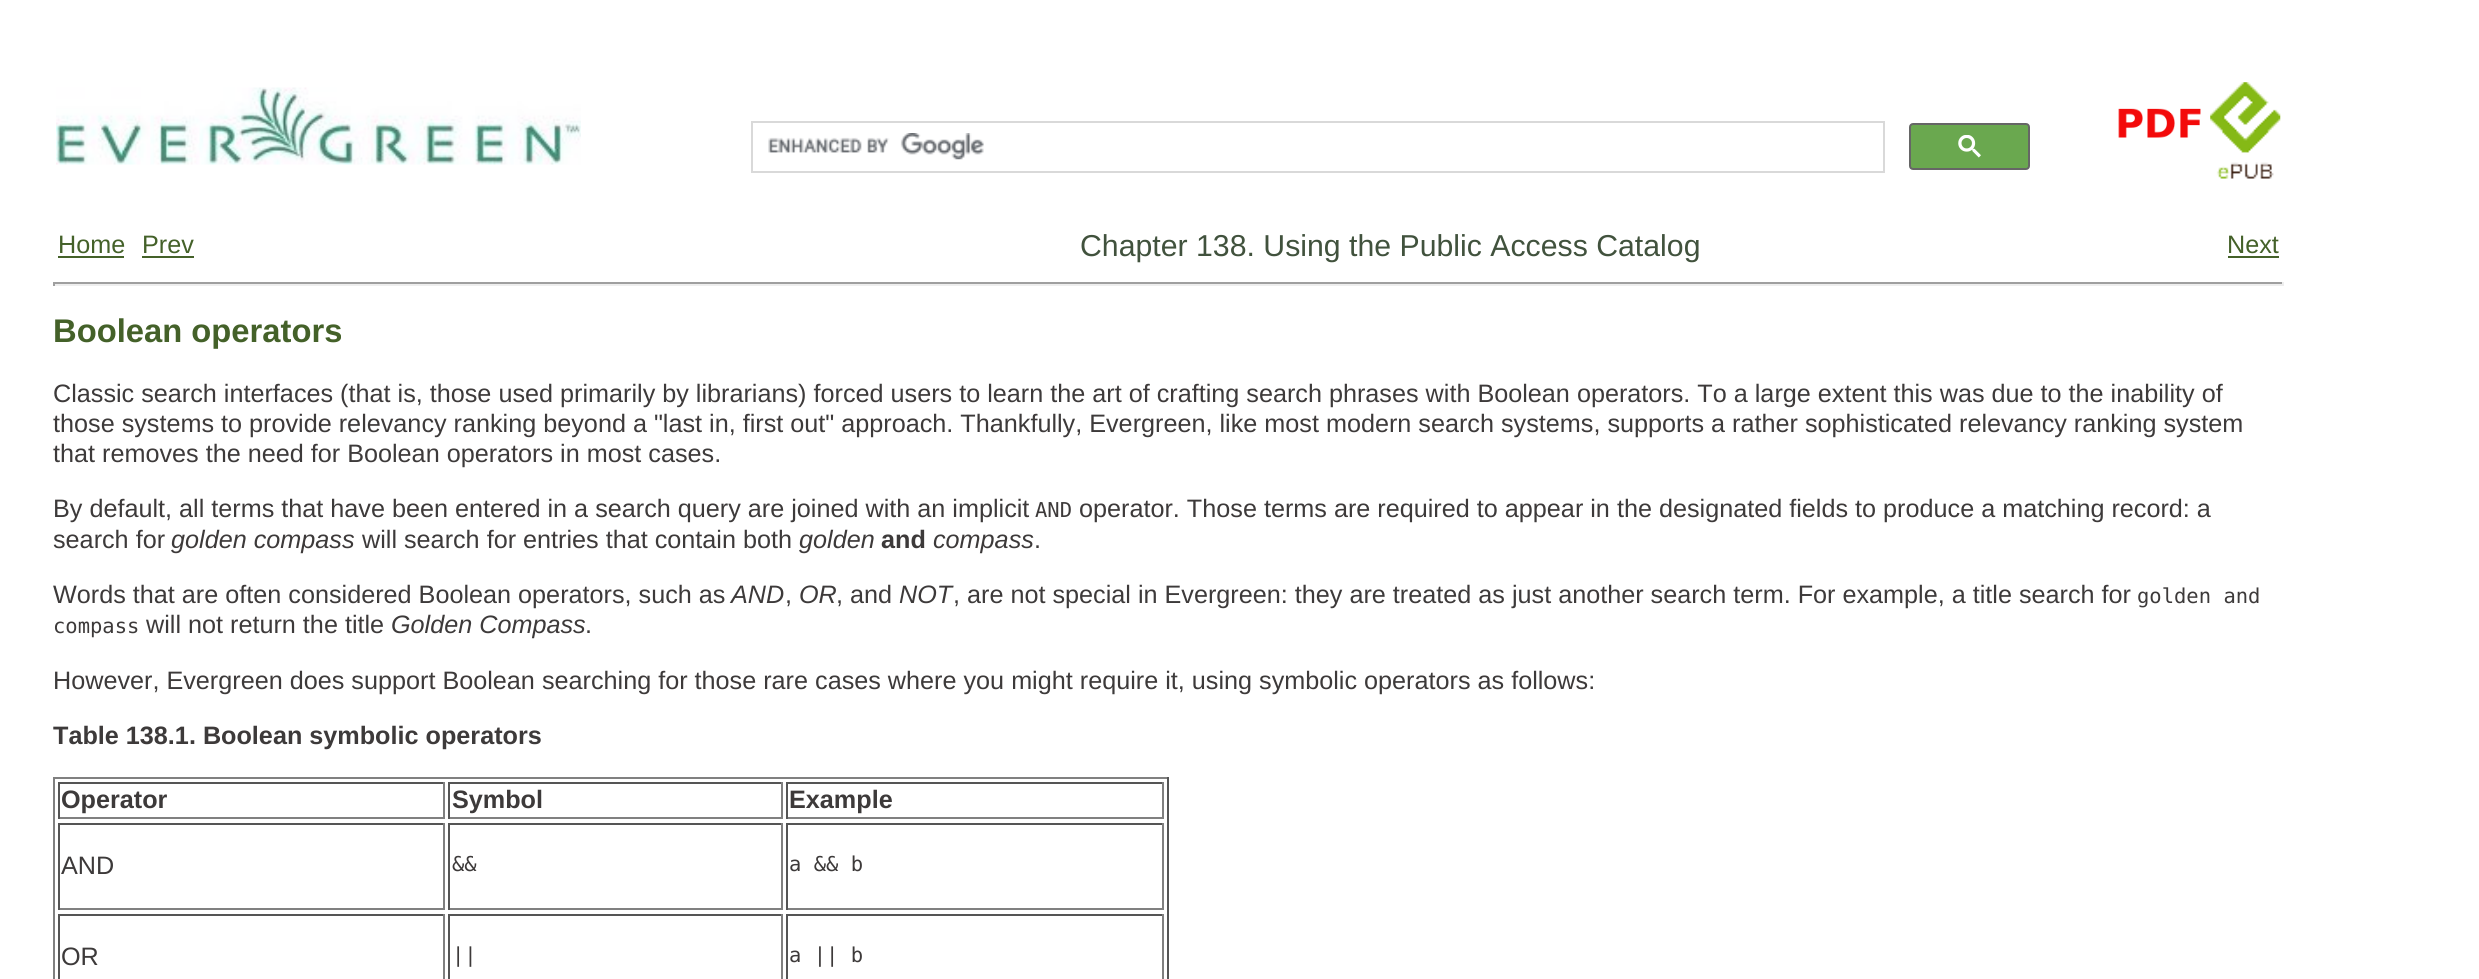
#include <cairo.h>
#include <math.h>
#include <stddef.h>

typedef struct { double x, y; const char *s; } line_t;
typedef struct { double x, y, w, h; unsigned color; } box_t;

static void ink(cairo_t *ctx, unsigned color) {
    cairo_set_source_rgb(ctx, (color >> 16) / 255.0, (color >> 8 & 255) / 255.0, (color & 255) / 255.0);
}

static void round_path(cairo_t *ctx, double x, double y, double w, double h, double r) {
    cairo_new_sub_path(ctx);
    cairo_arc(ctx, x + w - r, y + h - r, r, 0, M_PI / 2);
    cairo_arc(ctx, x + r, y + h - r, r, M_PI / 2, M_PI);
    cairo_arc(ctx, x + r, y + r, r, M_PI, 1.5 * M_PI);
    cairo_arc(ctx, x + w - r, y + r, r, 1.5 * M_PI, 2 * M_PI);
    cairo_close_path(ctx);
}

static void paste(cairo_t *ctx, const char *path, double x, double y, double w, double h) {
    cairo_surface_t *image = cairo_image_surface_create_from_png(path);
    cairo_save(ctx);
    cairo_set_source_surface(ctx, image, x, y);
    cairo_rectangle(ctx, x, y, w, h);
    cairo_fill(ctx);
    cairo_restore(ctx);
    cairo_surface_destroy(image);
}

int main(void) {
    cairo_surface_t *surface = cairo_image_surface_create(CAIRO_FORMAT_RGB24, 2479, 979);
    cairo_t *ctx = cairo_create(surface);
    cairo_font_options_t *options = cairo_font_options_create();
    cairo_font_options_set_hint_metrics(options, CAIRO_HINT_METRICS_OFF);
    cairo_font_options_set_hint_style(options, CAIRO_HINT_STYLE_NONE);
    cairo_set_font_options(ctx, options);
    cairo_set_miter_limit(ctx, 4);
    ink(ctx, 0xFFFFFF);
    cairo_paint(ctx);
    paste(ctx, "media/1.png", 56, 87, 525, 78);
    cairo_rectangle(ctx, 752, 122, 1132, 50);
    ink(ctx, 0xD9D9D9);
    cairo_stroke(ctx);
    paste(ctx, "media/2.png", 768, 133, 216, 27);
    ink(ctx, 0x6AA84F);
    round_path(ctx, 1910, 124, 119, 45, 3);
    cairo_fill_preserve(ctx);
    ink(ctx, 0x666666);
    cairo_stroke(ctx);
    paste(ctx, "media/3.png", 1958, 135, 23, 23);
    paste(ctx, "media/4.png", 2118, 108, 83, 30);
    paste(ctx, "media/5.png", 2210, 82, 71, 97);
    cairo_select_font_face(ctx, "Liberation Sans", CAIRO_FONT_SLANT_NORMAL, CAIRO_FONT_WEIGHT_NORMAL);
    cairo_set_font_size(ctx, 25.2);
    ink(ctx, 0x446129);
    cairo_move_to(ctx, 58, 253);
    cairo_show_text(ctx, "Home");
    cairo_rectangle(ctx, 58, 256, 66, 2);
    cairo_fill(ctx);
    cairo_move_to(ctx, 142, 253);
    cairo_show_text(ctx, "Prev");
    cairo_rectangle(ctx, 142, 256, 52, 2);
    cairo_fill(ctx);
    cairo_set_font_size(ctx, 30.25);
    ink(ctx, 0x41523D);
    cairo_move_to(ctx, 1080, 256);
    cairo_show_text(ctx, "Chapter 138. Using the Public Access Catalog");
    cairo_set_font_size(ctx, 25.2);
    ink(ctx, 0x446129);
    cairo_move_to(ctx, 2227, 253);
    cairo_show_text(ctx, "Next");
    {
        static const box_t items[] = {
            {2228, 256, 51, 2, 0x446129},
            {53, 282, 2231, 2, 0x9F9F9F},
            {2282, 282, 2, 4, 0xEEEEEE},
            {53, 284, 2231, 2, 0xEEEEEE},
            {53, 282, 2, 4, 0x9F9F9F},
        };
        for (size_t i = 0; i < sizeof items / sizeof *items; i++) {
            ink(ctx, items[i].color);
            cairo_rectangle(ctx, items[i].x, items[i].y, items[i].w, items[i].h);
            cairo_fill(ctx);
        }
    }
    cairo_select_font_face(ctx, "Liberation Sans", CAIRO_FONT_SLANT_NORMAL, CAIRO_FONT_WEIGHT_BOLD);
    cairo_set_font_size(ctx, 32.75);
    ink(ctx, 0x446129);
    cairo_move_to(ctx, 53, 342);
    cairo_show_text(ctx, "Boolean operators");
    cairo_select_font_face(ctx, "Liberation Sans", CAIRO_FONT_SLANT_NORMAL, CAIRO_FONT_WEIGHT_NORMAL);
    cairo_set_font_size(ctx, 25.2);
    ink(ctx, 0x3D3A3A);
    {
        static const line_t items[] = {
            {53, 402, "Classic search interfaces (that is, those used primarily by librarians) forced users to learn the art of crafting search phrases with Boolean operators. To a large extent this was due to the inability of"},
            {53, 432, "those systems to provide relevancy ranking beyond a \"last in, first out\" approach. Thankfully, Evergreen, like most modern search systems, supports a rather sophisticated relevancy ranking system"},
            {53, 462, "that removes the need for Boolean operators in most cases."},
            {53, 517, "By default, all terms that have been entered in a search query are joined with an implicit"},
        };
        for (size_t i = 0; i < sizeof items / sizeof *items; i++) {
            cairo_move_to(ctx, items[i].x, items[i].y);
            cairo_show_text(ctx, items[i].s);
        }
    }
    cairo_select_font_face(ctx, "DejaVu Sans Mono", CAIRO_FONT_SLANT_NORMAL, CAIRO_FONT_WEIGHT_NORMAL);
    cairo_set_font_size(ctx, 20.5);
    cairo_move_to(ctx, 1035, 517);
    cairo_show_text(ctx, "AND");
    cairo_select_font_face(ctx, "Liberation Sans", CAIRO_FONT_SLANT_NORMAL, CAIRO_FONT_WEIGHT_NORMAL);
    cairo_set_font_size(ctx, 25.2);
    cairo_move_to(ctx, 1079, 517);
    cairo_show_text(ctx, "operator. Those terms are required to appear in the designated fields to produce a matching record: a");
    cairo_move_to(ctx, 53, 548);
    cairo_show_text(ctx, "search for");
    cairo_select_font_face(ctx, "Liberation Sans", CAIRO_FONT_SLANT_ITALIC, CAIRO_FONT_WEIGHT_NORMAL);
    cairo_move_to(ctx, 171, 548);
    cairo_show_text(ctx, "golden compass");
    cairo_select_font_face(ctx, "Liberation Sans", CAIRO_FONT_SLANT_NORMAL, CAIRO_FONT_WEIGHT_NORMAL);
    cairo_move_to(ctx, 362, 548);
    cairo_show_text(ctx, "will search for entries that contain both");
    cairo_select_font_face(ctx, "Liberation Sans", CAIRO_FONT_SLANT_ITALIC, CAIRO_FONT_WEIGHT_NORMAL);
    cairo_move_to(ctx, 799, 548);
    cairo_show_text(ctx, "golden");
    cairo_select_font_face(ctx, "Liberation Sans", CAIRO_FONT_SLANT_NORMAL, CAIRO_FONT_WEIGHT_BOLD);
    cairo_move_to(ctx, 881, 548);
    cairo_show_text(ctx, "and");
    cairo_select_font_face(ctx, "Liberation Sans", CAIRO_FONT_SLANT_ITALIC, CAIRO_FONT_WEIGHT_NORMAL);
    cairo_move_to(ctx, 933, 548);
    cairo_show_text(ctx, "compass");
    cairo_select_font_face(ctx, "Liberation Sans", CAIRO_FONT_SLANT_NORMAL, CAIRO_FONT_WEIGHT_NORMAL);
    cairo_move_to(ctx, 1034, 548);
    cairo_show_text(ctx, ".");
    cairo_move_to(ctx, 53, 603);
    cairo_show_text(ctx, "Words that are often considered Boolean operators, such as");
    cairo_select_font_face(ctx, "Liberation Sans", CAIRO_FONT_SLANT_ITALIC, CAIRO_FONT_WEIGHT_NORMAL);
    cairo_move_to(ctx, 731, 603);
    cairo_show_text(ctx, "AND");
    cairo_select_font_face(ctx, "Liberation Sans", CAIRO_FONT_SLANT_NORMAL, CAIRO_FONT_WEIGHT_NORMAL);
    cairo_move_to(ctx, 785, 603);
    cairo_show_text(ctx, ",");
    cairo_select_font_face(ctx, "Liberation Sans", CAIRO_FONT_SLANT_ITALIC, CAIRO_FONT_WEIGHT_NORMAL);
    cairo_move_to(ctx, 799, 603);
    cairo_show_text(ctx, "OR");
    cairo_select_font_face(ctx, "Liberation Sans", CAIRO_FONT_SLANT_NORMAL, CAIRO_FONT_WEIGHT_NORMAL);
    cairo_move_to(ctx, 836, 603);
    cairo_show_text(ctx, ", and");
    cairo_select_font_face(ctx, "Liberation Sans", CAIRO_FONT_SLANT_ITALIC, CAIRO_FONT_WEIGHT_NORMAL);
    cairo_move_to(ctx, 899, 603);
    cairo_show_text(ctx, "NOT");
    cairo_select_font_face(ctx, "Liberation Sans", CAIRO_FONT_SLANT_NORMAL, CAIRO_FONT_WEIGHT_NORMAL);
    cairo_move_to(ctx, 953, 603);
    cairo_show_text(ctx, ", are not special in Evergreen: they are treated as just another search term. For example, a title search for");
    cairo_select_font_face(ctx, "DejaVu Sans Mono", CAIRO_FONT_SLANT_NORMAL, CAIRO_FONT_WEIGHT_NORMAL);
    cairo_set_font_size(ctx, 20.5);
    cairo_move_to(ctx, 2137, 603);
    cairo_show_text(ctx, "golden and");
    cairo_move_to(ctx, 53, 633);
    cairo_show_text(ctx, "compass");
    cairo_select_font_face(ctx, "Liberation Sans", CAIRO_FONT_SLANT_NORMAL, CAIRO_FONT_WEIGHT_NORMAL);
    cairo_set_font_size(ctx, 25.2);
    cairo_move_to(ctx, 146, 633);
    cairo_show_text(ctx, "will not return the title");
    cairo_select_font_face(ctx, "Liberation Sans", CAIRO_FONT_SLANT_ITALIC, CAIRO_FONT_WEIGHT_NORMAL);
    cairo_move_to(ctx, 391, 633);
    cairo_show_text(ctx, "Golden Compass");
    cairo_select_font_face(ctx, "Liberation Sans", CAIRO_FONT_SLANT_NORMAL, CAIRO_FONT_WEIGHT_NORMAL);
    cairo_move_to(ctx, 585, 633);
    cairo_show_text(ctx, ".");
    cairo_move_to(ctx, 53, 689);
    cairo_show_text(ctx, "However, Evergreen does support Boolean searching for those rare cases where you might require it, using symbolic operators as follows:");
    cairo_select_font_face(ctx, "Liberation Sans", CAIRO_FONT_SLANT_NORMAL, CAIRO_FONT_WEIGHT_BOLD);
    cairo_move_to(ctx, 53, 744);
    cairo_show_text(ctx, "Table 138.1. Boolean symbolic operators");
    {
        static const box_t items[] = {
            {53, 777, 1116, 2, 0x808080},
            {1167, 777, 2, 202, 0x555555},
            {53, 777, 2, 202, 0x808080},
            {58, 782, 387, 2, 0x555555},
            {443, 782, 2, 37, 0x808080},
            {58, 817, 387, 2, 0x808080},
            {58, 782, 2, 37, 0x555555},
        };
        for (size_t i = 0; i < sizeof items / sizeof *items; i++) {
            ink(ctx, items[i].color);
            cairo_rectangle(ctx, items[i].x, items[i].y, items[i].w, items[i].h);
            cairo_fill(ctx);
        }
    }
    ink(ctx, 0x3D3A3A);
    cairo_move_to(ctx, 61, 808);
    cairo_show_text(ctx, "Operator");
    {
        static const box_t items[] = {
            {448, 782, 334, 2, 0x555555},
            {781, 782, 2, 37, 0x808080},
            {448, 817, 334, 2, 0x808080},
            {448, 782, 2, 37, 0x555555},
        };
        for (size_t i = 0; i < sizeof items / sizeof *items; i++) {
            ink(ctx, items[i].color);
            cairo_rectangle(ctx, items[i].x, items[i].y, items[i].w, items[i].h);
            cairo_fill(ctx);
        }
    }
    ink(ctx, 0x3D3A3A);
    cairo_move_to(ctx, 452, 808);
    cairo_show_text(ctx, "Symbol");
    {
        static const box_t items[] = {
            {786, 782, 378, 2, 0x555555},
            {1162, 782, 2, 37, 0x808080},
            {786, 817, 378, 2, 0x808080},
            {786, 782, 2, 37, 0x555555},
        };
        for (size_t i = 0; i < sizeof items / sizeof *items; i++) {
            ink(ctx, items[i].color);
            cairo_rectangle(ctx, items[i].x, items[i].y, items[i].w, items[i].h);
            cairo_fill(ctx);
        }
    }
    ink(ctx, 0x3D3A3A);
    cairo_move_to(ctx, 789, 808);
    cairo_show_text(ctx, "Example");
    {
        static const box_t items[] = {
            {58, 823, 387, 2, 0x555555},
            {443, 823, 2, 87, 0x808080},
            {58, 908, 387, 2, 0x808080},
            {58, 823, 2, 87, 0x555555},
        };
        for (size_t i = 0; i < sizeof items / sizeof *items; i++) {
            ink(ctx, items[i].color);
            cairo_rectangle(ctx, items[i].x, items[i].y, items[i].w, items[i].h);
            cairo_fill(ctx);
        }
    }
    cairo_select_font_face(ctx, "Liberation Sans", CAIRO_FONT_SLANT_NORMAL, CAIRO_FONT_WEIGHT_NORMAL);
    ink(ctx, 0x3D3A3A);
    cairo_move_to(ctx, 61, 874);
    cairo_show_text(ctx, "AND");
    {
        static const box_t items[] = {
            {448, 823, 334, 2, 0x555555},
            {781, 823, 2, 87, 0x808080},
            {448, 908, 334, 2, 0x808080},
            {448, 823, 2, 87, 0x555555},
        };
        for (size_t i = 0; i < sizeof items / sizeof *items; i++) {
            ink(ctx, items[i].color);
            cairo_rectangle(ctx, items[i].x, items[i].y, items[i].w, items[i].h);
            cairo_fill(ctx);
        }
    }
    cairo_select_font_face(ctx, "DejaVu Sans Mono", CAIRO_FONT_SLANT_NORMAL, CAIRO_FONT_WEIGHT_NORMAL);
    cairo_set_font_size(ctx, 20.5);
    ink(ctx, 0x3D3A3A);
    cairo_move_to(ctx, 452, 871);
    cairo_show_text(ctx, "&&");
    {
        static const box_t items[] = {
            {786, 823, 378, 2, 0x555555},
            {1162, 823, 2, 87, 0x808080},
            {786, 908, 378, 2, 0x808080},
            {786, 823, 2, 87, 0x555555},
        };
        for (size_t i = 0; i < sizeof items / sizeof *items; i++) {
            ink(ctx, items[i].color);
            cairo_rectangle(ctx, items[i].x, items[i].y, items[i].w, items[i].h);
            cairo_fill(ctx);
        }
    }
    ink(ctx, 0x3D3A3A);
    cairo_move_to(ctx, 789, 871);
    cairo_show_text(ctx, "a && b");
    {
        static const box_t items[] = {
            {58, 914, 387, 2, 0x555555},
            {443, 914, 2, 65, 0x808080},
            {58, 914, 2, 65, 0x555555},
        };
        for (size_t i = 0; i < sizeof items / sizeof *items; i++) {
            ink(ctx, items[i].color);
            cairo_rectangle(ctx, items[i].x, items[i].y, items[i].w, items[i].h);
            cairo_fill(ctx);
        }
    }
    cairo_select_font_face(ctx, "Liberation Sans", CAIRO_FONT_SLANT_NORMAL, CAIRO_FONT_WEIGHT_NORMAL);
    cairo_set_font_size(ctx, 25.2);
    ink(ctx, 0x3D3A3A);
    cairo_move_to(ctx, 61, 965);
    cairo_show_text(ctx, "OR");
    {
        static const box_t items[] = {
            {448, 914, 334, 2, 0x555555},
            {781, 914, 2, 65, 0x808080},
            {448, 914, 2, 65, 0x555555},
        };
        for (size_t i = 0; i < sizeof items / sizeof *items; i++) {
            ink(ctx, items[i].color);
            cairo_rectangle(ctx, items[i].x, items[i].y, items[i].w, items[i].h);
            cairo_fill(ctx);
        }
    }
    cairo_select_font_face(ctx, "DejaVu Sans Mono", CAIRO_FONT_SLANT_NORMAL, CAIRO_FONT_WEIGHT_NORMAL);
    cairo_set_font_size(ctx, 20.5);
    ink(ctx, 0x3D3A3A);
    cairo_move_to(ctx, 452, 962);
    cairo_show_text(ctx, "||");
    {
        static const box_t items[] = {
            {786, 914, 378, 2, 0x555555},
            {1162, 914, 2, 65, 0x808080},
            {786, 914, 2, 65, 0x555555},
        };
        for (size_t i = 0; i < sizeof items / sizeof *items; i++) {
            ink(ctx, items[i].color);
            cairo_rectangle(ctx, items[i].x, items[i].y, items[i].w, items[i].h);
            cairo_fill(ctx);
        }
    }
    ink(ctx, 0x3D3A3A);
    cairo_move_to(ctx, 789, 962);
    cairo_show_text(ctx, "a || b");
    cairo_surface_write_to_png(surface, "image.png");
    cairo_font_options_destroy(options);
    cairo_destroy(ctx);
    cairo_surface_destroy(surface);
    return 0;
}
